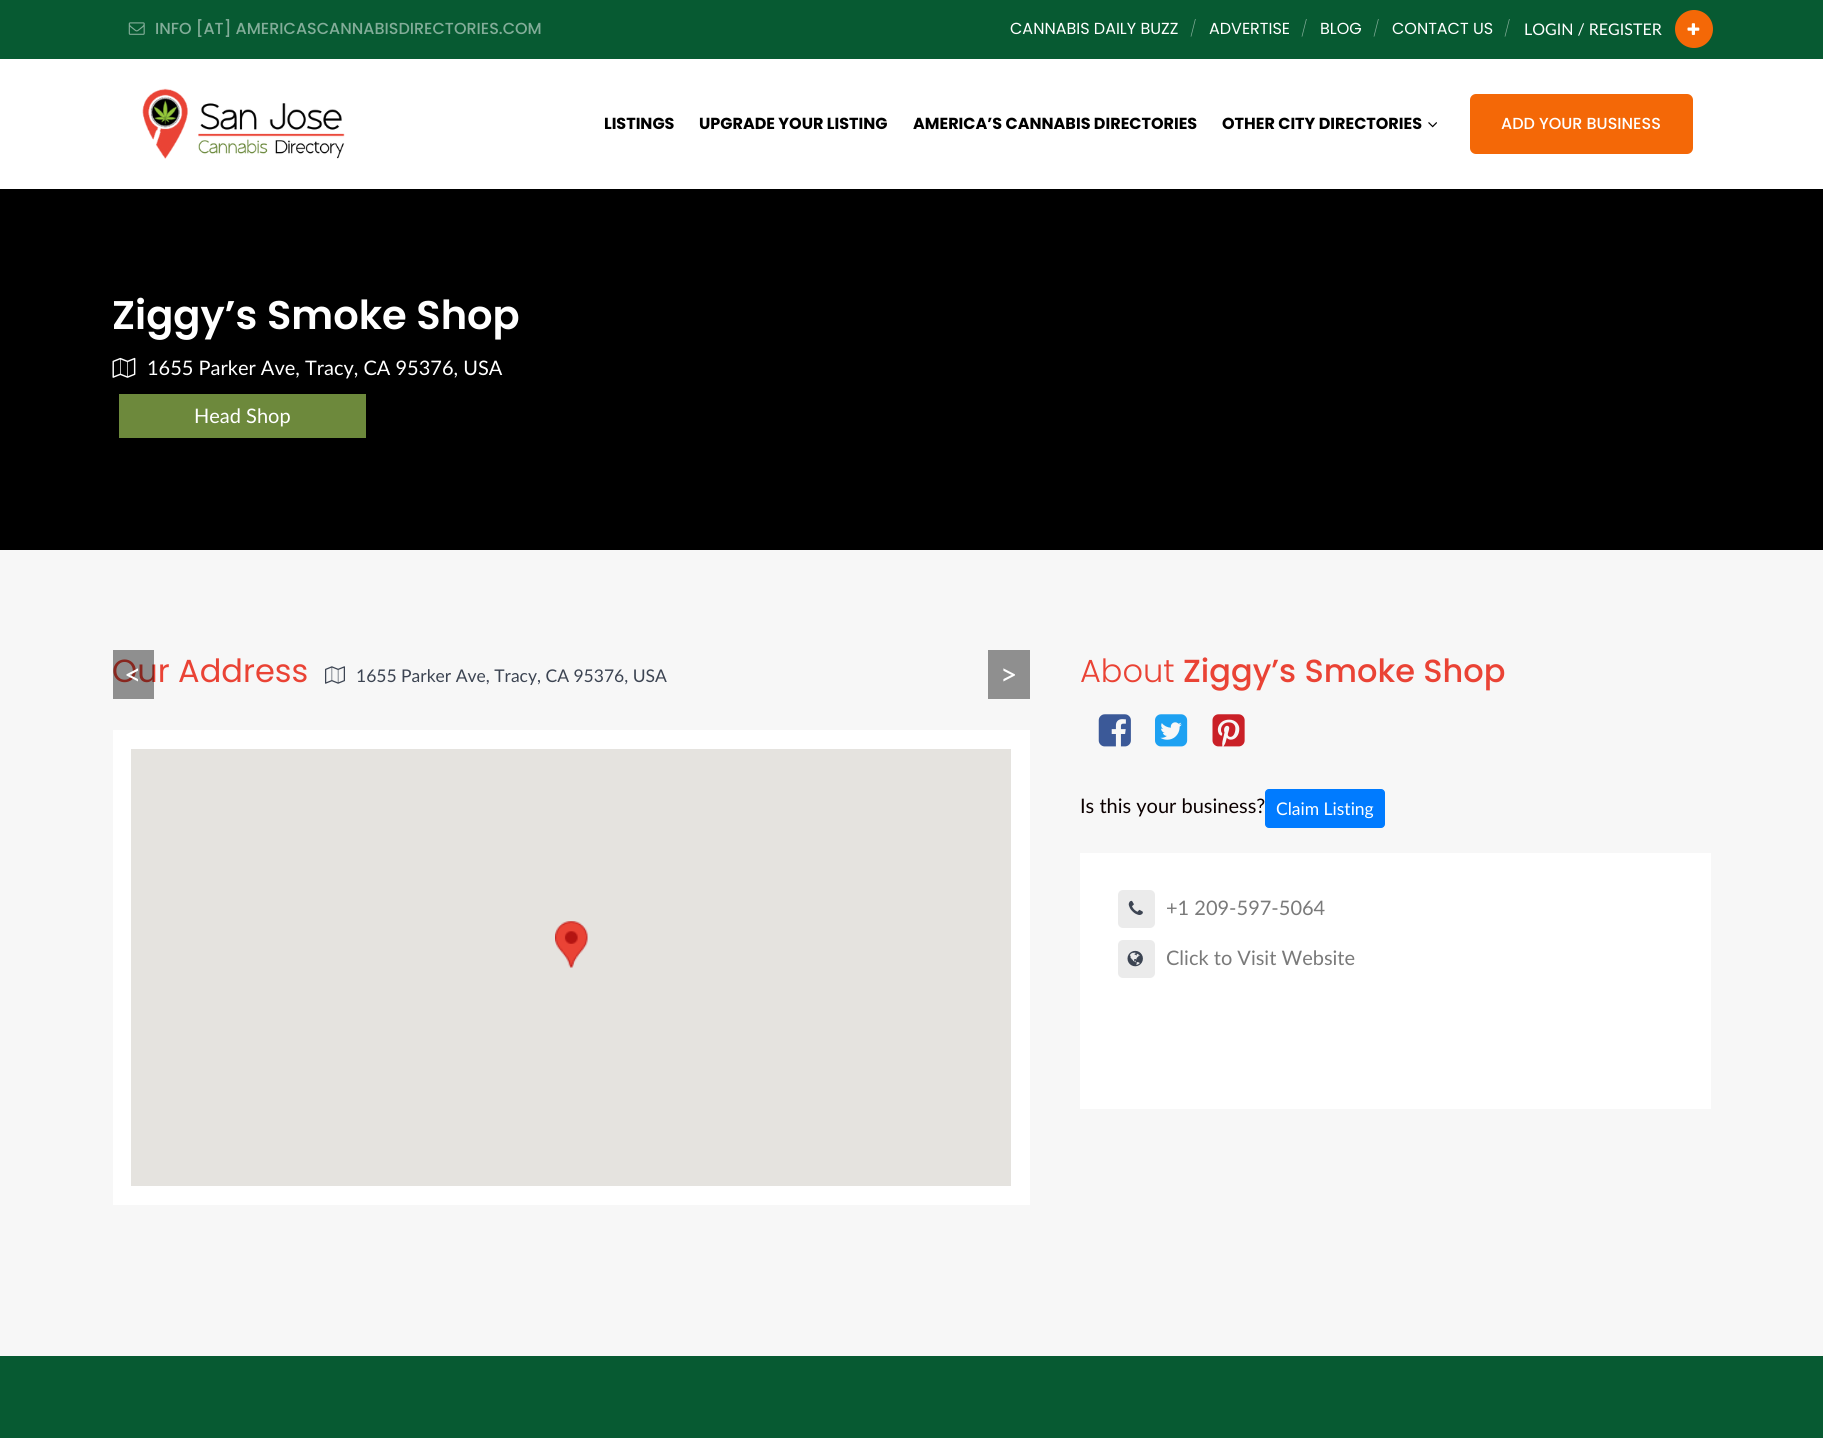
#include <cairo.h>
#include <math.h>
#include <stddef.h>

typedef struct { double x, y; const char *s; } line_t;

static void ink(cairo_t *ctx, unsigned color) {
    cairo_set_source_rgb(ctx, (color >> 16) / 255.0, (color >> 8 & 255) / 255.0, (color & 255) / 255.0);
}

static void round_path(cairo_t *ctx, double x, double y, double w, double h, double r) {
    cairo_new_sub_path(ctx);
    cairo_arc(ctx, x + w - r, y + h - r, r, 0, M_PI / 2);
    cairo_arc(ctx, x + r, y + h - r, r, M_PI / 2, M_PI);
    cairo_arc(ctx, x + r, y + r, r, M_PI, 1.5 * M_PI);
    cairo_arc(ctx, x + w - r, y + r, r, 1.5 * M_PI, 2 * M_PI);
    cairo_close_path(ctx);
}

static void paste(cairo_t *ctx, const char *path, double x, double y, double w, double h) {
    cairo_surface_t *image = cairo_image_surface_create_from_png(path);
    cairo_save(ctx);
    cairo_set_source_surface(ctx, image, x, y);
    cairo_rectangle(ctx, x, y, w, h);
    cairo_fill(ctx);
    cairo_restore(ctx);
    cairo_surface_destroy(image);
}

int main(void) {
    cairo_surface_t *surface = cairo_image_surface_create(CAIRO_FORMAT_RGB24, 1823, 1438);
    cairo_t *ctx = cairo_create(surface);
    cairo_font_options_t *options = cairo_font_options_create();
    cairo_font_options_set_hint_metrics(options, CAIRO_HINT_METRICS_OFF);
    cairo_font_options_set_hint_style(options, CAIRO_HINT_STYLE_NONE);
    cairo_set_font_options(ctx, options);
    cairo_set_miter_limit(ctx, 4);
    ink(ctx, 0xFFFFFF);
    cairo_paint(ctx);
    ink(ctx, 0x075A32);
    cairo_rectangle(ctx, 0, 0, 1823, 59);
    cairo_fill(ctx);
    paste(ctx, "media/1.png", 128, 22, 17, 13);
    cairo_select_font_face(ctx, "Poppins Medium", CAIRO_FONT_SLANT_NORMAL, CAIRO_FONT_WEIGHT_NORMAL);
    cairo_set_font_size(ctx, 16);
    ink(ctx, 0x83AD99);
    cairo_move_to(ctx, 155, 34);
    cairo_show_text(ctx, "INFO [AT] AMERICASCANNABISDIRECTORIES.COM");
    cairo_select_font_face(ctx, "Poppins", CAIRO_FONT_SLANT_NORMAL, CAIRO_FONT_WEIGHT_NORMAL);
    ink(ctx, 0xFFFFFF);
    cairo_move_to(ctx, 1010, 34);
    cairo_show_text(ctx, "CANNABIS DAILY BUZZ");
    cairo_select_font_face(ctx, "Poppins ExtraLight", CAIRO_FONT_SLANT_NORMAL, CAIRO_FONT_WEIGHT_NORMAL);
    ink(ctx, 0x83AD99);
    cairo_move_to(ctx, 1190, 34);
    cairo_show_text(ctx, "/");
    cairo_select_font_face(ctx, "Poppins", CAIRO_FONT_SLANT_NORMAL, CAIRO_FONT_WEIGHT_NORMAL);
    ink(ctx, 0xFFFFFF);
    cairo_move_to(ctx, 1209, 34);
    cairo_show_text(ctx, "ADVERTISE");
    cairo_select_font_face(ctx, "Poppins ExtraLight", CAIRO_FONT_SLANT_NORMAL, CAIRO_FONT_WEIGHT_NORMAL);
    ink(ctx, 0x83AD99);
    cairo_move_to(ctx, 1301, 34);
    cairo_show_text(ctx, "/");
    cairo_select_font_face(ctx, "Poppins", CAIRO_FONT_SLANT_NORMAL, CAIRO_FONT_WEIGHT_NORMAL);
    ink(ctx, 0xFFFFFF);
    cairo_move_to(ctx, 1320, 34);
    cairo_show_text(ctx, "BLOG");
    cairo_select_font_face(ctx, "Poppins ExtraLight", CAIRO_FONT_SLANT_NORMAL, CAIRO_FONT_WEIGHT_NORMAL);
    ink(ctx, 0x83AD99);
    cairo_move_to(ctx, 1373, 34);
    cairo_show_text(ctx, "/");
    cairo_select_font_face(ctx, "Poppins", CAIRO_FONT_SLANT_NORMAL, CAIRO_FONT_WEIGHT_NORMAL);
    ink(ctx, 0xFFFFFF);
    cairo_move_to(ctx, 1392, 34);
    cairo_show_text(ctx, "CONTACT US");
    cairo_select_font_face(ctx, "Poppins ExtraLight", CAIRO_FONT_SLANT_NORMAL, CAIRO_FONT_WEIGHT_NORMAL);
    ink(ctx, 0x83AD99);
    cairo_move_to(ctx, 1504, 34);
    cairo_show_text(ctx, "/");
    cairo_select_font_face(ctx, "Lato", CAIRO_FONT_SLANT_NORMAL, CAIRO_FONT_WEIGHT_NORMAL);
    ink(ctx, 0xFFFFFF);
    cairo_move_to(ctx, 1524, 35);
    cairo_show_text(ctx, "LOGIN / REGISTER");
    ink(ctx, 0xF46807);
    cairo_new_path(ctx);
    cairo_arc(ctx, 1694, 29, 19, 0, 2 * M_PI);
    cairo_fill(ctx);
    paste(ctx, "media/2.png", 1687, 23, 13, 12);
    paste(ctx, "media/3.png", 142, 88, 203, 71);
    cairo_select_font_face(ctx, "Poppins", CAIRO_FONT_SLANT_NORMAL, CAIRO_FONT_WEIGHT_BOLD);
    ink(ctx, 0x000000);
    {
        static const line_t items[] = {
            {604, 129, "LISTINGS"},
            {699, 129, "UPGRADE YOUR LISTING"},
            {913, 129, "AMERICA’S CANNABIS DIRECTORIES"},
            {1222, 129, "OTHER CITY DIRECTORIES"},
        };
        for (size_t i = 0; i < sizeof items / sizeof *items; i++) {
            cairo_move_to(ctx, items[i].x, items[i].y);
            cairo_show_text(ctx, items[i].s);
        }
    }
    paste(ctx, "media/4.png", 1428, 122, 9, 6);
    ink(ctx, 0xF46807);
    round_path(ctx, 1470, 94, 223, 60, 6);
    cairo_fill(ctx);
    cairo_select_font_face(ctx, "Poppins Medium", CAIRO_FONT_SLANT_NORMAL, CAIRO_FONT_WEIGHT_NORMAL);
    ink(ctx, 0xFFFFFF);
    cairo_move_to(ctx, 1501, 129);
    cairo_show_text(ctx, "ADD YOUR BUSINESS");
    ink(ctx, 0x000000);
    cairo_rectangle(ctx, 0, 189, 1823, 361);
    cairo_fill(ctx);
    cairo_select_font_face(ctx, "Poppins SemiBold", CAIRO_FONT_SLANT_NORMAL, CAIRO_FONT_WEIGHT_NORMAL);
    cairo_set_font_size(ctx, 40);
    ink(ctx, 0xFFFFFF);
    cairo_move_to(ctx, 112, 329);
    cairo_show_text(ctx, "Ziggy’s Smoke Shop");
    paste(ctx, "media/5.png", 112, 357, 24, 21);
    cairo_select_font_face(ctx, "Lato", CAIRO_FONT_SLANT_NORMAL, CAIRO_FONT_WEIGHT_NORMAL);
    cairo_set_font_size(ctx, 20);
    cairo_move_to(ctx, 147, 375);
    cairo_show_text(ctx, "1655 Parker Ave, Tracy, CA 95376, USA");
    ink(ctx, 0x6D893C);
    cairo_rectangle(ctx, 119, 394, 247, 44);
    cairo_fill(ctx);
    ink(ctx, 0xFFFFFF);
    cairo_move_to(ctx, 194, 423);
    cairo_show_text(ctx, "Head Shop");
    ink(ctx, 0xF7F7F7);
    cairo_rectangle(ctx, 0, 550, 1823, 806);
    cairo_fill(ctx);
    cairo_select_font_face(ctx, "Poppins", CAIRO_FONT_SLANT_NORMAL, CAIRO_FONT_WEIGHT_NORMAL);
    cairo_set_font_size(ctx, 32);
    ink(ctx, 0xEA4335);
    cairo_move_to(ctx, 112, 682);
    cairo_show_text(ctx, "Our Address");
    paste(ctx, "media/6.png", 325, 666, 20, 18);
    cairo_select_font_face(ctx, "Lato", CAIRO_FONT_SLANT_NORMAL, CAIRO_FONT_WEIGHT_NORMAL);
    cairo_set_font_size(ctx, 17.5);
    ink(ctx, 0x3C4452);
    cairo_move_to(ctx, 356, 682);
    cairo_show_text(ctx, "1655 Parker Ave, Tracy, CA 95376, USA");
    ink(ctx, 0xFFFFFF);
    cairo_rectangle(ctx, 113, 730, 917, 475);
    cairo_fill(ctx);
    ink(ctx, 0xE5E3DF);
    cairo_rectangle(ctx, 131, 749, 880, 437);
    cairo_fill(ctx);
    paste(ctx, "media/7.png", 555, 921, 33, 47);
    cairo_set_source_rgba(ctx, 0, 0, 0, 0.42);
    cairo_rectangle(ctx, 113, 650, 41, 49);
    cairo_fill(ctx);
    cairo_set_font_size(ctx, 30);
    ink(ctx, 0xFFFFFF);
    cairo_move_to(ctx, 124, 685);
    cairo_show_text(ctx, "<");
    ink(ctx, 0x8F8F8F);
    cairo_rectangle(ctx, 988, 650, 42, 49);
    cairo_fill(ctx);
    ink(ctx, 0xFFFFFF);
    cairo_move_to(ctx, 1000, 685);
    cairo_show_text(ctx, ">");
    cairo_select_font_face(ctx, "Poppins Light", CAIRO_FONT_SLANT_NORMAL, CAIRO_FONT_WEIGHT_NORMAL);
    cairo_set_font_size(ctx, 32);
    ink(ctx, 0xEA4335);
    cairo_move_to(ctx, 1080, 682);
    cairo_show_text(ctx, "About");
    cairo_select_font_face(ctx, "Poppins Medium", CAIRO_FONT_SLANT_NORMAL, CAIRO_FONT_WEIGHT_NORMAL);
    cairo_move_to(ctx, 1183, 682);
    cairo_show_text(ctx, "Ziggy’s Smoke Shop");
    paste(ctx, "media/8.png", 1098, 714, 33, 33);
    paste(ctx, "media/9.png", 1155, 714, 33, 33);
    paste(ctx, "media/10.png", 1212, 714, 33, 33);
    cairo_select_font_face(ctx, "Lato", CAIRO_FONT_SLANT_NORMAL, CAIRO_FONT_WEIGHT_NORMAL);
    cairo_set_font_size(ctx, 20);
    ink(ctx, 0x0C0000);
    cairo_move_to(ctx, 1080, 813);
    cairo_show_text(ctx, "Is this your business?");
    ink(ctx, 0x007BFF);
    round_path(ctx, 1265.5, 789.5, 119, 38, 3.5);
    cairo_fill_preserve(ctx);
    cairo_set_line_width(ctx, 1);
    cairo_stroke(ctx);
    cairo_set_font_size(ctx, 17.5);
    ink(ctx, 0xFFFFFF);
    cairo_move_to(ctx, 1276, 815);
    cairo_show_text(ctx, "Claim Listing");
    cairo_rectangle(ctx, 1080, 853, 631, 256);
    cairo_fill(ctx);
    ink(ctx, 0xEBEBEB);
    round_path(ctx, 1118, 890, 37, 38, 5);
    cairo_fill(ctx);
    paste(ctx, "media/11.png", 1128, 900, 15, 15);
    cairo_set_font_size(ctx, 20);
    ink(ctx, 0x7A7A7A);
    cairo_move_to(ctx, 1166, 915);
    cairo_show_text(ctx, "+1 209-597-5064");
    ink(ctx, 0xEBEBEB);
    round_path(ctx, 1118, 940, 37, 38, 5);
    cairo_fill(ctx);
    paste(ctx, "media/12.png", 1127, 950, 16, 17);
    ink(ctx, 0x7A7A7A);
    cairo_move_to(ctx, 1166, 965);
    cairo_show_text(ctx, "Click to Visit Website");
    ink(ctx, 0x075A32);
    cairo_rectangle(ctx, 0, 1356, 1823, 82);
    cairo_fill(ctx);
    cairo_surface_write_to_png(surface, "image.png");
    cairo_font_options_destroy(options);
    cairo_destroy(ctx);
    cairo_surface_destroy(surface);
    return 0;
}
